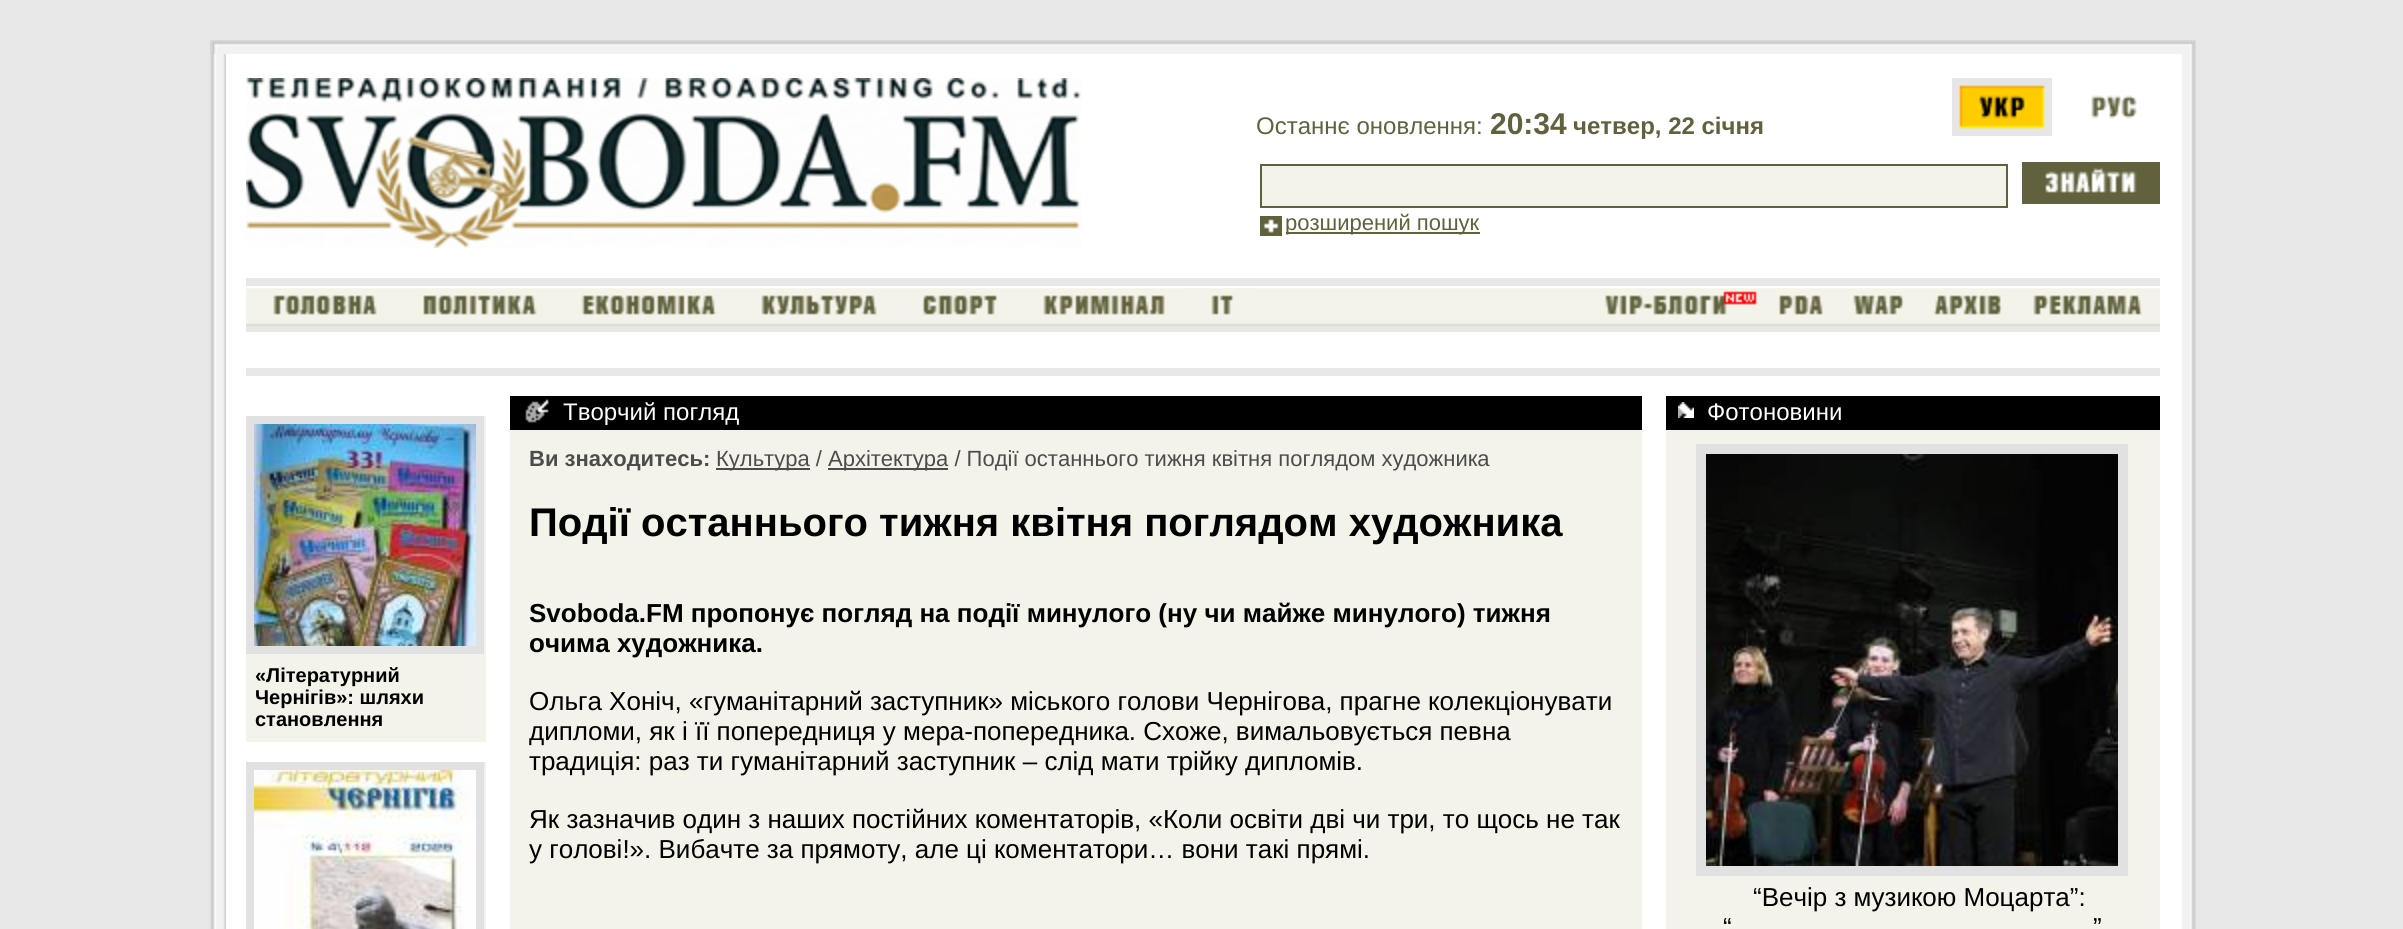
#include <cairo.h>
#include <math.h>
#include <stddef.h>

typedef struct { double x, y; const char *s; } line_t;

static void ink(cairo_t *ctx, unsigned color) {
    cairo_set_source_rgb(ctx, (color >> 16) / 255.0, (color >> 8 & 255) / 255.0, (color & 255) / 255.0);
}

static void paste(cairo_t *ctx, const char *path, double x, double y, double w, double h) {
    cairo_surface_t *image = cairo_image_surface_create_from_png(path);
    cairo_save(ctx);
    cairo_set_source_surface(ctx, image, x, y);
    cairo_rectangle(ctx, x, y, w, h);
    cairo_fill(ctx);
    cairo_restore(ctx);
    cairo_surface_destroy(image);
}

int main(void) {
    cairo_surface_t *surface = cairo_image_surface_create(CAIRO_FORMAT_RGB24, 2403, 929);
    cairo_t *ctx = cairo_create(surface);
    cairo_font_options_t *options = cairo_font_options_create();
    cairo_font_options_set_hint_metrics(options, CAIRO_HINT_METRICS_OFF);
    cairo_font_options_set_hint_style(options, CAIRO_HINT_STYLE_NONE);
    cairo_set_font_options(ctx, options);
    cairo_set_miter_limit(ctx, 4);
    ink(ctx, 0xE7E7E7);
    cairo_paint(ctx);
    ink(ctx, 0xFFFFFF);
    cairo_rectangle(ctx, 226, 54, 1956, 875);
    cairo_fill(ctx);
    paste(ctx, "media/1.png", 226, 40, 1956, 14);
    paste(ctx, "media/2.png", 2182, 40, 14, 889);
    paste(ctx, "media/3.png", 210, 54, 16, 875);
    paste(ctx, "media/4.png", 210, 40, 16, 14);
    paste(ctx, "media/5.png", 2182, 40, 12, 6);
    ink(ctx, 0xE7E7E7);
    cairo_rectangle(ctx, 246, 368, 1914, 8);
    cairo_fill(ctx);
    paste(ctx, "media/6.png", 246, 78, 836, 170);
    cairo_select_font_face(ctx, "Liberation Sans", CAIRO_FONT_SLANT_NORMAL, CAIRO_FONT_WEIGHT_NORMAL);
    cairo_set_font_size(ctx, 24);
    ink(ctx, 0x61613E);
    cairo_move_to(ctx, 1256, 134);
    cairo_show_text(ctx, "Останнє оновлення:");
    cairo_select_font_face(ctx, "Liberation Sans", CAIRO_FONT_SLANT_NORMAL, CAIRO_FONT_WEIGHT_BOLD);
    cairo_set_font_size(ctx, 30);
    cairo_move_to(ctx, 1490, 134);
    cairo_show_text(ctx, "20:34");
    cairo_set_font_size(ctx, 24);
    cairo_move_to(ctx, 1573, 134);
    cairo_show_text(ctx, "четвер, 22 січня");
    paste(ctx, "media/7.png", 1952, 78, 100, 58);
    paste(ctx, "media/8.png", 2091, 95, 46, 24);
    ink(ctx, 0xF3F3E9);
    cairo_rectangle(ctx, 1261, 165, 746, 42);
    cairo_fill_preserve(ctx);
    ink(ctx, 0x61613E);
    cairo_stroke(ctx);
    paste(ctx, "media/9.png", 2022, 162, 138, 42);
    paste(ctx, "media/10.png", 1260, 216, 22, 20);
    cairo_rectangle(ctx, 1286, 232, 194, 2);
    cairo_fill(ctx);
    cairo_select_font_face(ctx, "Liberation Sans", CAIRO_FONT_SLANT_NORMAL, CAIRO_FONT_WEIGHT_NORMAL);
    cairo_set_font_size(ctx, 22);
    cairo_move_to(ctx, 1285, 230);
    cairo_show_text(ctx, "розширений пошук");
    paste(ctx, "media/11.png", 246, 287, 1914, 39);
    ink(ctx, 0xE7E7E7);
    cairo_rectangle(ctx, 246, 278, 1914, 8);
    cairo_fill(ctx);
    cairo_rectangle(ctx, 246, 326, 1914, 6);
    cairo_fill(ctx);
    paste(ctx, "media/12.png", 273, 295, 104, 20);
    paste(ctx, "media/13.png", 423, 295, 114, 20);
    paste(ctx, "media/14.png", 581, 295, 136, 20);
    paste(ctx, "media/15.png", 761, 295, 116, 20);
    paste(ctx, "media/16.png", 922, 295, 76, 20);
    paste(ctx, "media/17.png", 1043, 295, 122, 20);
    paste(ctx, "media/18.png", 1188, 288, 66, 27);
    paste(ctx, "media/19.png", 1605, 291, 152, 24);
    paste(ctx, "media/20.png", 1779, 295, 44, 20);
    paste(ctx, "media/21.png", 1853, 295, 51, 20);
    paste(ctx, "media/22.png", 1933, 295, 69, 20);
    paste(ctx, "media/23.png", 2033, 295, 110, 20);
    ink(ctx, 0xF3F3E9);
    cairo_rectangle(ctx, 246, 416, 240, 326);
    cairo_fill(ctx);
    ink(ctx, 0xE1E1E1);
    cairo_rectangle(ctx, 246, 416, 238, 238);
    cairo_fill(ctx);
    paste(ctx, "media/24.png", 254, 424, 222, 222);
    cairo_select_font_face(ctx, "Liberation Sans", CAIRO_FONT_SLANT_NORMAL, CAIRO_FONT_WEIGHT_BOLD);
    cairo_set_font_size(ctx, 20);
    ink(ctx, 0x000000);
    {
        static const line_t items[] = {
            {255, 682, "«Літературний"},
            {255, 704, "Чернігів»: шляхи"},
            {255, 726, "становлення"},
        };
        for (size_t i = 0; i < sizeof items / sizeof *items; i++) {
            cairo_move_to(ctx, items[i].x, items[i].y);
            cairo_show_text(ctx, items[i].s);
        }
    }
    ink(ctx, 0xF3F3E9);
    cairo_rectangle(ctx, 484, 762, 2, 167);
    cairo_fill(ctx);
    ink(ctx, 0xE1E1E1);
    cairo_rectangle(ctx, 246, 762, 238, 167);
    cairo_fill(ctx);
    paste(ctx, "media/25.png", 254, 770, 222, 159);
    ink(ctx, 0xF3F3E9);
    cairo_rectangle(ctx, 510, 430, 1132, 499);
    cairo_fill(ctx);
    ink(ctx, 0x000000);
    cairo_rectangle(ctx, 510, 396, 1132, 34);
    cairo_fill(ctx);
    paste(ctx, "media/26.png", 525, 399, 24, 24);
    cairo_select_font_face(ctx, "Liberation Sans", CAIRO_FONT_SLANT_NORMAL, CAIRO_FONT_WEIGHT_NORMAL);
    cairo_set_font_size(ctx, 24);
    ink(ctx, 0xFFFFFF);
    cairo_move_to(ctx, 563, 420);
    cairo_show_text(ctx, "Творчий погляд");
    cairo_select_font_face(ctx, "Liberation Sans", CAIRO_FONT_SLANT_NORMAL, CAIRO_FONT_WEIGHT_BOLD);
    cairo_set_font_size(ctx, 22);
    ink(ctx, 0x4C4C4C);
    cairo_move_to(ctx, 529, 466);
    cairo_show_text(ctx, "Ви знаходитесь:");
    cairo_rectangle(ctx, 716, 468, 94, 2);
    cairo_fill(ctx);
    cairo_select_font_face(ctx, "Liberation Sans", CAIRO_FONT_SLANT_NORMAL, CAIRO_FONT_WEIGHT_NORMAL);
    cairo_move_to(ctx, 716, 466);
    cairo_show_text(ctx, "Культура /");
    cairo_rectangle(ctx, 828, 468, 120, 2);
    cairo_fill(ctx);
    cairo_move_to(ctx, 828, 466);
    cairo_show_text(ctx, "Архітектура / Події останнього тижня квітня поглядом художника");
    cairo_select_font_face(ctx, "Liberation Sans", CAIRO_FONT_SLANT_NORMAL, CAIRO_FONT_WEIGHT_BOLD);
    cairo_set_font_size(ctx, 40);
    ink(ctx, 0x000000);
    cairo_move_to(ctx, 529, 536);
    cairo_show_text(ctx, "Події останнього тижня квітня поглядом художника");
    cairo_set_font_size(ctx, 26);
    cairo_move_to(ctx, 529, 622);
    cairo_show_text(ctx, "Svoboda.FM пропонує погляд на події минулого (ну чи майже минулого) тижня");
    cairo_move_to(ctx, 529, 652);
    cairo_show_text(ctx, "очима художника.");
    cairo_select_font_face(ctx, "Liberation Sans", CAIRO_FONT_SLANT_NORMAL, CAIRO_FONT_WEIGHT_NORMAL);
    {
        static const line_t items[] = {
            {529, 710, "Ольга Хоніч, «гуманітарний заступник» міського голови Чернігова, прагне колекціонувати"},
            {529, 740, "дипломи, як і її попередниця у мера-попередника. Схоже, вимальовується певна"},
            {529, 770, "традиція: раз ти гуманітарний заступник – слід мати трійку дипломів."},
            {529, 828, "Як зазначив один з наших постійних коментаторів, «Коли освіти дві чи три, то щось не так"},
            {529, 858, "у голові!». Вибачте за прямоту, але ці коментатори… вони такі прямі."},
        };
        for (size_t i = 0; i < sizeof items / sizeof *items; i++) {
            cairo_move_to(ctx, items[i].x, items[i].y);
            cairo_show_text(ctx, items[i].s);
        }
    }
    ink(ctx, 0xF3F3E9);
    cairo_rectangle(ctx, 1666, 430, 494, 499);
    cairo_fill(ctx);
    ink(ctx, 0x000000);
    cairo_rectangle(ctx, 1666, 396, 494, 34);
    cairo_fill(ctx);
    paste(ctx, "media/27.png", 1678, 402, 16, 16);
    cairo_set_font_size(ctx, 24);
    ink(ctx, 0xFFFFFF);
    cairo_move_to(ctx, 1707, 420);
    cairo_show_text(ctx, "Фотоновини");
    ink(ctx, 0xE1E1E1);
    cairo_rectangle(ctx, 1696, 444, 432, 432);
    cairo_fill(ctx);
    paste(ctx, "media/28.png", 1706, 454, 412, 412);
    cairo_set_font_size(ctx, 26);
    ink(ctx, 0x000000);
    {
        static const line_t items[] = {
            {1753, 906, "“Вечір з музикою Моцарта”:"},
            {1723, 936, "“"},
            {2093, 936, "”"},
        };
        for (size_t i = 0; i < sizeof items / sizeof *items; i++) {
            cairo_move_to(ctx, items[i].x, items[i].y);
            cairo_show_text(ctx, items[i].s);
        }
    }
    cairo_surface_write_to_png(surface, "image.png");
    cairo_font_options_destroy(options);
    cairo_destroy(ctx);
    cairo_surface_destroy(surface);
    return 0;
}
